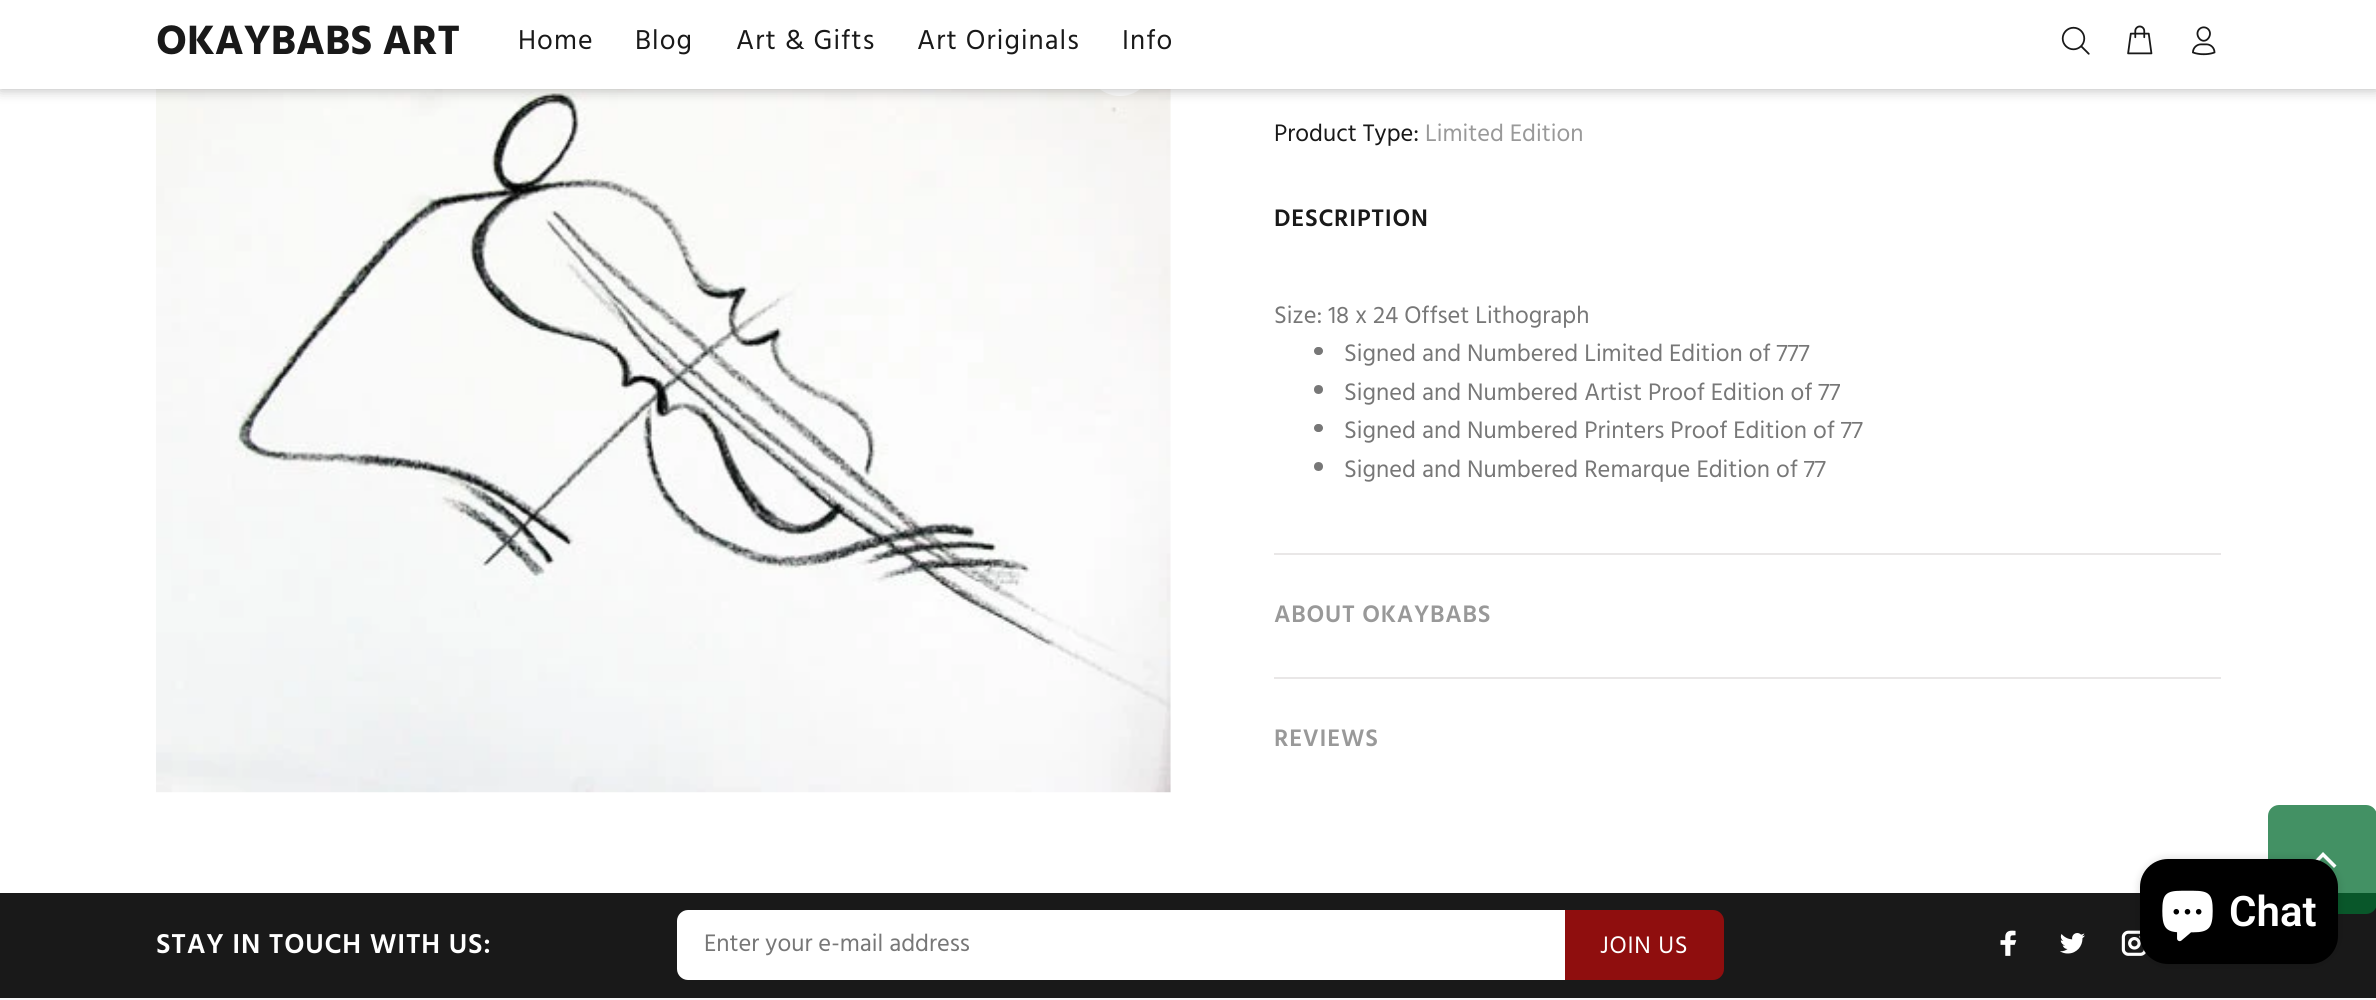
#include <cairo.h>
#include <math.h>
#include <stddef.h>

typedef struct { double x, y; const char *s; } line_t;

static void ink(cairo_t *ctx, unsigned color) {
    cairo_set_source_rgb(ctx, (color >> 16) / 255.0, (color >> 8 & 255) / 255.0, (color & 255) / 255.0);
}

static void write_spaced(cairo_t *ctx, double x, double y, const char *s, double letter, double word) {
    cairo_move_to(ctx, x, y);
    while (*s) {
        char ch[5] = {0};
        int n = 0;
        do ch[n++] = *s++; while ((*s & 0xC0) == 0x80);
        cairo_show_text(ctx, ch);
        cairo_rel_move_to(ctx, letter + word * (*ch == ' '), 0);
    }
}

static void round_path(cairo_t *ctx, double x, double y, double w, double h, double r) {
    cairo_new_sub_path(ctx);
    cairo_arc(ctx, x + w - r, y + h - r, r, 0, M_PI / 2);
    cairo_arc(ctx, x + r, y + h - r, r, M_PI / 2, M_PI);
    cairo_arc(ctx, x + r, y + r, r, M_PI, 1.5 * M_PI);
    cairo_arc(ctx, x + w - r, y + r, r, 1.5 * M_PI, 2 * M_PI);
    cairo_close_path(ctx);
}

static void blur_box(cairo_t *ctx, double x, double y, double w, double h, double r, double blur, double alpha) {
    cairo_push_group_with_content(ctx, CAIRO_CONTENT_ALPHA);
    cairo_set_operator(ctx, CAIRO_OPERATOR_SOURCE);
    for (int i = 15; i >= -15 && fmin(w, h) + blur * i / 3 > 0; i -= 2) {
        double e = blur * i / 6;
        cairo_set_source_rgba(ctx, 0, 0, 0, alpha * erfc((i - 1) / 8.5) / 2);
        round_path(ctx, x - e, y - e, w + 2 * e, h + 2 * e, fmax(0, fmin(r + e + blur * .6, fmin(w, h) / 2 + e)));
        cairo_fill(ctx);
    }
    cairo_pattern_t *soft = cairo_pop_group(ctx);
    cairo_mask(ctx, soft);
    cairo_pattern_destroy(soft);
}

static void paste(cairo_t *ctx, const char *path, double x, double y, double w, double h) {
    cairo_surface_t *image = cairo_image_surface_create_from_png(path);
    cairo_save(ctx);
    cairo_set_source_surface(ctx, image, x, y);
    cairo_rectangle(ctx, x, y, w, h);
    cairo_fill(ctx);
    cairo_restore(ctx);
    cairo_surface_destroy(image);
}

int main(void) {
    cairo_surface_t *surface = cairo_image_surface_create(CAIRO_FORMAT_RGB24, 2376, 1000);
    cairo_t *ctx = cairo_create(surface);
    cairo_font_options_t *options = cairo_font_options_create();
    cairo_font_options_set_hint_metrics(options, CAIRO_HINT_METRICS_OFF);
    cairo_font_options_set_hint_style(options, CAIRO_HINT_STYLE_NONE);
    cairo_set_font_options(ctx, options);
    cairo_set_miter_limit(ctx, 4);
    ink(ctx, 0xFFFFFF);
    cairo_paint(ctx);
    paste(ctx, "media/4.png", 156, 89, 1015, 704);
    ink(ctx, 0xFFFFFF);
    cairo_arc(ctx, 1120, 63, 33, 0, 2 * M_PI);
    cairo_fill(ctx);
    ink(ctx, 0x000000);
    blur_box(ctx, 0, 0, 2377, 89, 0, 7, 0.3);
    ink(ctx, 0xFFFFFF);
    cairo_rectangle(ctx, 0, 0, 2376, 89);
    cairo_fill(ctx);
    cairo_select_font_face(ctx, "Hind", CAIRO_FONT_SLANT_NORMAL, CAIRO_FONT_WEIGHT_BOLD);
    cairo_set_font_size(ctx, 42);
    ink(ctx, 0x191919);
    cairo_move_to(ctx, 156, 54);
    cairo_show_text(ctx, "OKAYBABS ART");
    cairo_select_font_face(ctx, "Hind", CAIRO_FONT_SLANT_NORMAL, CAIRO_FONT_WEIGHT_NORMAL);
    cairo_set_font_size(ctx, 28);
    {
        static const line_t items[] = {
            {518, 49, "Home"},
            {635, 49, "Blog"},
            {736, 49, "Art & Gifts"},
            {917, 49, "Art Originals"},
            {1122, 49, "Info"},
        };
        for (size_t i = 0; i < sizeof items / sizeof *items; i++) {
            write_spaced(ctx, items[i].x, items[i].y, items[i].s, 1.1, 0);
        }
    }
    paste(ctx, "media/1.png", 2061, 26, 29, 29);
    paste(ctx, "media/2.png", 2127, 25, 26, 30);
    paste(ctx, "media/3.png", 2192, 26, 24, 30);
    cairo_set_font_size(ctx, 24.5);
    cairo_move_to(ctx, 1274, 141);
    cairo_show_text(ctx, "Product Type:");
    ink(ctx, 0x999999);
    cairo_move_to(ctx, 1425, 141);
    cairo_show_text(ctx, "Limited Edition");
    ink(ctx, 0xE9E7E7);
    cairo_rectangle(ctx, 1274, 553, 947, 2);
    cairo_fill(ctx);
    cairo_select_font_face(ctx, "Hind SemiBold", CAIRO_FONT_SLANT_NORMAL, CAIRO_FONT_WEIGHT_NORMAL);
    ink(ctx, 0x191919);
    write_spaced(ctx, 1274, 226, "DESCRIPTION", 0.75, 0);
    cairo_select_font_face(ctx, "Hind", CAIRO_FONT_SLANT_NORMAL, CAIRO_FONT_WEIGHT_NORMAL);
    ink(ctx, 0x777777);
    cairo_move_to(ctx, 1274, 323);
    cairo_show_text(ctx, "Size: 18 x 24 Offset Lithograph");
    round_path(ctx, 1314, 347, 9, 8, 4);
    cairo_fill(ctx);
    cairo_move_to(ctx, 1344, 361);
    cairo_show_text(ctx, "Signed and Numbered Limited Edition of 777");
    cairo_new_path(ctx);
    cairo_arc(ctx, 1318.5, 389.5, 4.5, 0, 2 * M_PI);
    cairo_fill(ctx);
    cairo_move_to(ctx, 1344, 400);
    cairo_show_text(ctx, "Signed and Numbered Artist Proof Edition of 77");
    round_path(ctx, 1314, 424, 9, 8, 4);
    cairo_fill(ctx);
    cairo_move_to(ctx, 1344, 438);
    cairo_show_text(ctx, "Signed and Numbered Printers Proof Edition of 77");
    cairo_new_path(ctx);
    cairo_arc(ctx, 1318.5, 466.5, 4.5, 0, 2 * M_PI);
    cairo_fill(ctx);
    cairo_move_to(ctx, 1344, 477);
    cairo_show_text(ctx, "Signed and Numbered Remarque Edition of 77");
    ink(ctx, 0xE9E7E7);
    cairo_rectangle(ctx, 1274, 677, 947, 2);
    cairo_fill(ctx);
    cairo_select_font_face(ctx, "Hind SemiBold", CAIRO_FONT_SLANT_NORMAL, CAIRO_FONT_WEIGHT_NORMAL);
    ink(ctx, 0x999999);
    write_spaced(ctx, 1274, 622, "ABOUT OKAYBABS", 0.75, 0);
    write_spaced(ctx, 1274, 746, "REVIEWS", 0.75, 0);
    ink(ctx, 0x191919);
    cairo_rectangle(ctx, 0, 893, 2376, 105);
    cairo_fill(ctx);
    cairo_set_source_rgba(ctx, 0.02, 0.424, 0.188, 0.75);
    round_path(ctx, 2268, 805, 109, 109, 11);
    cairo_fill(ctx);
    ink(ctx, 0xFFFFFF);
    cairo_new_path(ctx);
    cairo_move_to(ctx, 2334, 868);
    cairo_line_to(ctx, 2323, 857);
    cairo_line_to(ctx, 2312, 868);
    cairo_line_to(ctx, 2310, 865.5);
    cairo_line_to(ctx, 2323, 852);
    cairo_line_to(ctx, 2336.5, 865.5);
    cairo_close_path(ctx);
    cairo_fill(ctx);
    paste(ctx, "media/8.png", 2121, 930, 25, 26);
    ink(ctx, 0x000000);
    blur_box(ctx, 2140, 859, 198, 105, 28, 4.5, 0.15);
    ink(ctx, 0x000000);
    round_path(ctx, 2140, 859, 198, 105, 28);
    cairo_fill(ctx);
    paste(ctx, "media/5.png", 2162, 890, 51, 52);
    cairo_select_font_face(ctx, "Roboto SemiBold", CAIRO_FONT_SLANT_NORMAL, CAIRO_FONT_WEIGHT_NORMAL);
    cairo_set_font_size(ctx, 42);
    ink(ctx, 0xFFFFFF);
    cairo_move_to(ctx, 2229, 926);
    cairo_show_text(ctx, "Chat");
    ink(ctx, 0xF7F8FA);
    cairo_rectangle(ctx, 0, 998, 2376, 2);
    cairo_fill(ctx);
    cairo_select_font_face(ctx, "Hind SemiBold", CAIRO_FONT_SLANT_NORMAL, CAIRO_FONT_WEIGHT_NORMAL);
    cairo_set_font_size(ctx, 28);
    ink(ctx, 0xFFFFFF);
    write_spaced(ctx, 156, 953, "STAY IN TOUCH WITH US:", 0.8, 0);
    cairo_new_path(ctx);
    cairo_move_to(ctx, 688, 910);
    cairo_line_to(ctx, 1565, 910);
    cairo_line_to(ctx, 1565, 980);
    cairo_line_to(ctx, 688, 980);
    cairo_curve_to(ctx, 682, 980, 677, 975, 677, 969);
    cairo_line_to(ctx, 677, 921);
    cairo_curve_to(ctx, 677, 915, 682, 910, 688, 910);
    cairo_close_path(ctx);
    cairo_fill(ctx);
    cairo_select_font_face(ctx, "Hind", CAIRO_FONT_SLANT_NORMAL, CAIRO_FONT_WEIGHT_NORMAL);
    cairo_set_font_size(ctx, 24.5);
    ink(ctx, 0x777777);
    cairo_move_to(ctx, 704, 951);
    cairo_show_text(ctx, "Enter your e-mail address");
    ink(ctx, 0x8F0E0E);
    cairo_new_path(ctx);
    cairo_move_to(ctx, 1565, 910);
    cairo_line_to(ctx, 1713, 910);
    cairo_curve_to(ctx, 1719, 910, 1724, 915, 1724, 921);
    cairo_line_to(ctx, 1724, 969);
    cairo_curve_to(ctx, 1724, 975, 1719, 980, 1713, 980);
    cairo_line_to(ctx, 1565, 980);
    cairo_close_path(ctx);
    cairo_fill(ctx);
    ink(ctx, 0xFFFFFF);
    write_spaced(ctx, 1600, 953, "JOIN US", 0.75, 0);
    paste(ctx, "media/6.png", 2000, 930, 17, 26);
    paste(ctx, "media/7.png", 2060, 933, 25, 21);
    cairo_surface_write_to_png(surface, "image.png");
    cairo_font_options_destroy(options);
    cairo_destroy(ctx);
    cairo_surface_destroy(surface);
    return 0;
}
